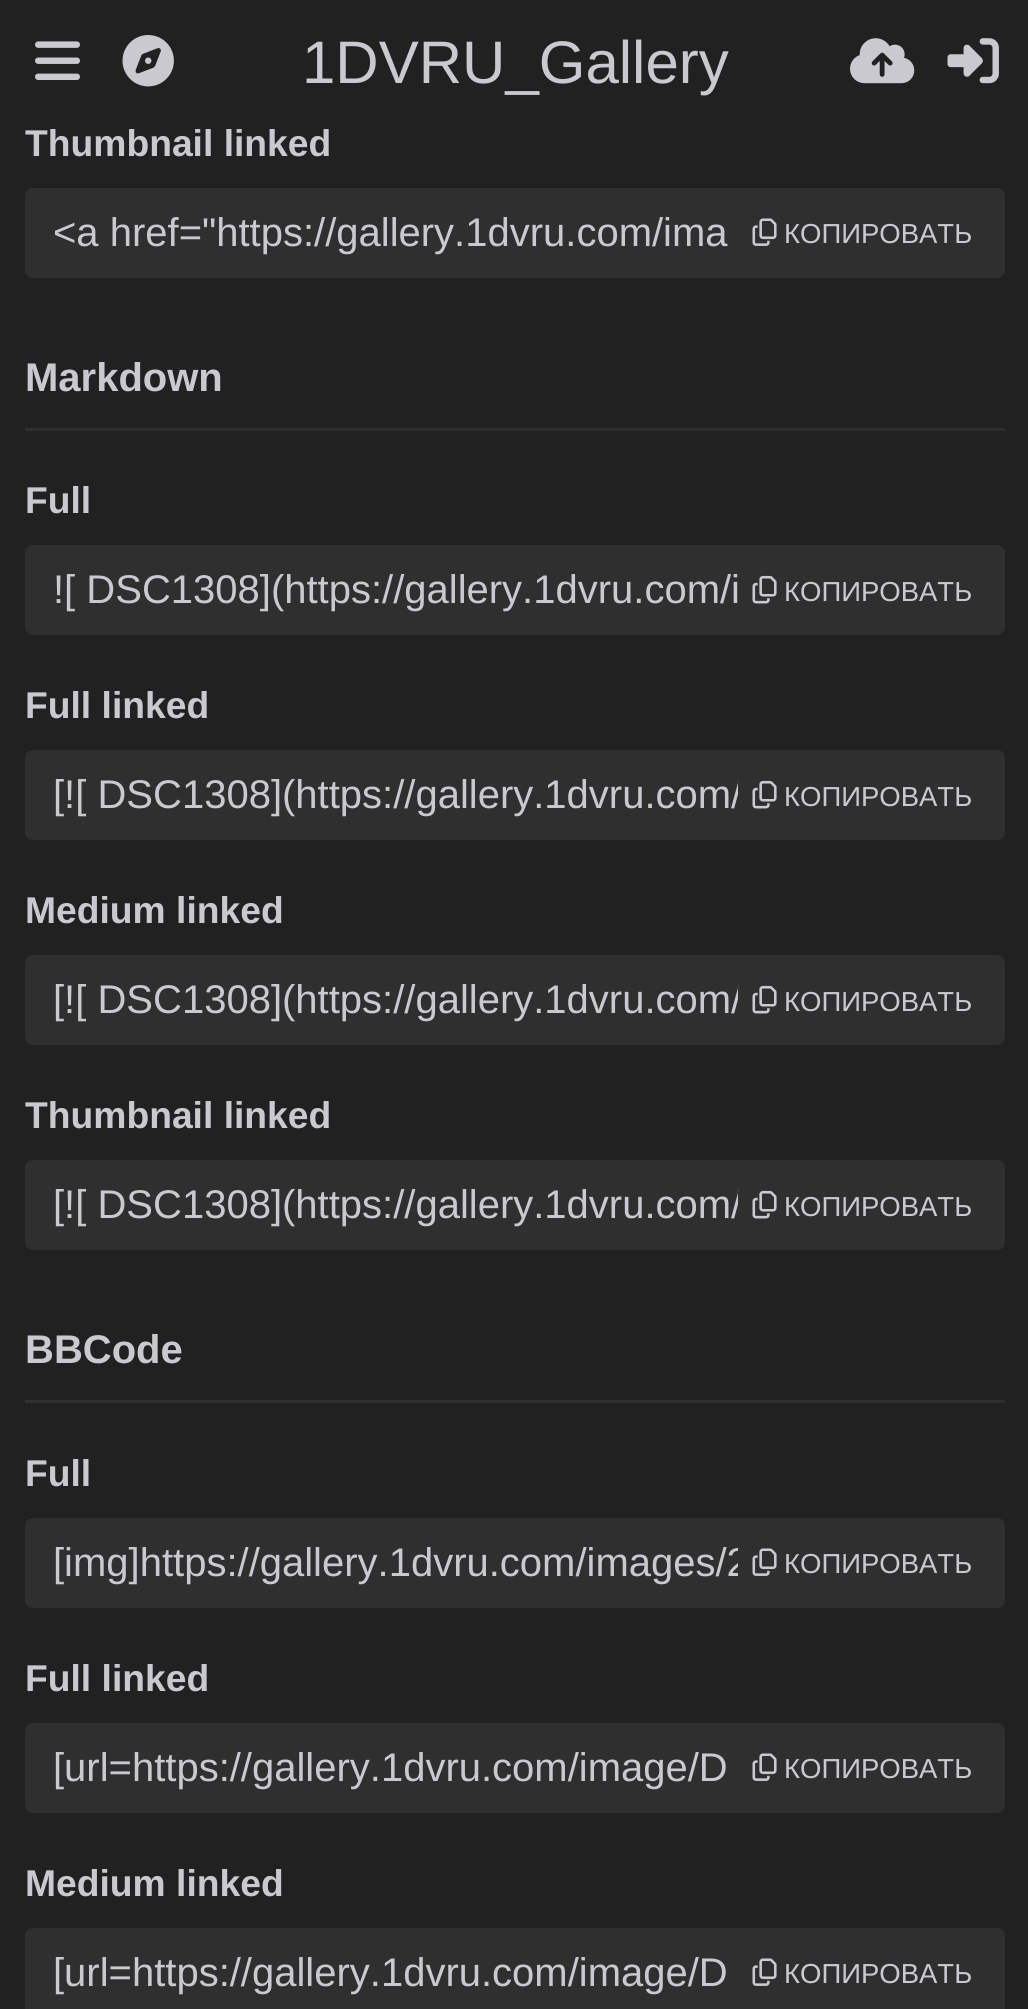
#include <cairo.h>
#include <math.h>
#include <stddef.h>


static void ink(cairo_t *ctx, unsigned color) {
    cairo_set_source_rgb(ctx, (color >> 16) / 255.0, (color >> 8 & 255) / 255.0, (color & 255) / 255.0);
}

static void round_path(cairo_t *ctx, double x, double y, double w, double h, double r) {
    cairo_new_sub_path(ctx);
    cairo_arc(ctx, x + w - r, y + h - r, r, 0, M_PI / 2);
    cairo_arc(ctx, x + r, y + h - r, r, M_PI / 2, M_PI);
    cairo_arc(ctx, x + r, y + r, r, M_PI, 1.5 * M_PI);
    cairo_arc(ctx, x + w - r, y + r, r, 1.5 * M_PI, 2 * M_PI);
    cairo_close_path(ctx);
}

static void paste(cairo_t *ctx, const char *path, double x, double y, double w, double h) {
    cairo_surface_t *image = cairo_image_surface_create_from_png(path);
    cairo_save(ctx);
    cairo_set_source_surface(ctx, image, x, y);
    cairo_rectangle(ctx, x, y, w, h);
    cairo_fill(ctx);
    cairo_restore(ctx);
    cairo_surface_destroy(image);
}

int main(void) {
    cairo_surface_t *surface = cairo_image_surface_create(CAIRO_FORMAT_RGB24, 1028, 2009);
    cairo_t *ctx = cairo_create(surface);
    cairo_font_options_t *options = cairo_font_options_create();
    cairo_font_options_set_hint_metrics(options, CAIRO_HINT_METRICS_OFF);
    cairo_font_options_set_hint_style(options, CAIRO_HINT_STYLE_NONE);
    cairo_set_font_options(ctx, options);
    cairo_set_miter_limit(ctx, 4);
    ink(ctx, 0x212121);
    cairo_paint(ctx);
    paste(ctx, "media/1.png", 35, 41, 45, 39);
    paste(ctx, "media/2.png", 122, 35, 52, 52);
    cairo_select_font_face(ctx, "Liberation Sans", CAIRO_FONT_SLANT_NORMAL, CAIRO_FONT_WEIGHT_NORMAL);
    cairo_set_font_size(ctx, 60);
    ink(ctx, 0xCAC9CF);
    cairo_move_to(ctx, 302, 83);
    cairo_show_text(ctx, "1DVRU_Gallery");
    paste(ctx, "media/3.png", 850, 38, 65, 46);
    paste(ctx, "media/4.png", 947, 38, 52, 46);
    cairo_select_font_face(ctx, "Liberation Sans", CAIRO_FONT_SLANT_NORMAL, CAIRO_FONT_WEIGHT_BOLD);
    cairo_set_font_size(ctx, 37.25);
    cairo_move_to(ctx, 25, 156);
    cairo_show_text(ctx, "Thumbnail linked");
    ink(ctx, 0x2F2F2F);
    round_path(ctx, 25, 188, 980, 90, 8);
    cairo_fill(ctx);
    cairo_select_font_face(ctx, "Liberation Sans", CAIRO_FONT_SLANT_NORMAL, CAIRO_FONT_WEIGHT_NORMAL);
    cairo_set_font_size(ctx, 40);
    ink(ctx, 0xCAC9CF);
    cairo_move_to(ctx, 53, 246);
    cairo_show_text(ctx, "<a href=\"https://gallery.1dvru.com/ima");
    paste(ctx, "media/5.png", 752, 218, 25, 28);
    cairo_set_font_size(ctx, 27.5);
    cairo_move_to(ctx, 784, 243);
    cairo_show_text(ctx, "КОПИРОВАТЬ");
    ink(ctx, 0x2F2F2F);
    cairo_rectangle(ctx, 25, 428, 980, 3);
    cairo_fill(ctx);
    cairo_select_font_face(ctx, "Liberation Sans", CAIRO_FONT_SLANT_NORMAL, CAIRO_FONT_WEIGHT_BOLD);
    cairo_set_font_size(ctx, 40);
    ink(ctx, 0xCAC9CF);
    cairo_move_to(ctx, 25, 391);
    cairo_show_text(ctx, "Markdown");
    cairo_set_font_size(ctx, 37.25);
    cairo_move_to(ctx, 25, 513);
    cairo_show_text(ctx, "Full");
    ink(ctx, 0x2F2F2F);
    round_path(ctx, 25, 545, 980, 90, 8);
    cairo_fill(ctx);
    cairo_select_font_face(ctx, "Liberation Sans", CAIRO_FONT_SLANT_NORMAL, CAIRO_FONT_WEIGHT_NORMAL);
    cairo_set_font_size(ctx, 40);
    ink(ctx, 0xCAC9CF);
    cairo_move_to(ctx, 53, 603);
    cairo_show_text(ctx, "![ DSC1308](https://gallery.1dvru.com/i");
    paste(ctx, "media/6.png", 752, 575, 25, 29);
    cairo_set_font_size(ctx, 27.5);
    cairo_move_to(ctx, 784, 601);
    cairo_show_text(ctx, "КОПИРОВАТЬ");
    cairo_select_font_face(ctx, "Liberation Sans", CAIRO_FONT_SLANT_NORMAL, CAIRO_FONT_WEIGHT_BOLD);
    cairo_set_font_size(ctx, 37.25);
    cairo_move_to(ctx, 25, 718);
    cairo_show_text(ctx, "Full linked");
    ink(ctx, 0x2F2F2F);
    round_path(ctx, 25, 750, 980, 90, 8);
    cairo_fill(ctx);
    cairo_select_font_face(ctx, "Liberation Sans", CAIRO_FONT_SLANT_NORMAL, CAIRO_FONT_WEIGHT_NORMAL);
    cairo_set_font_size(ctx, 40);
    ink(ctx, 0xCAC9CF);
    cairo_move_to(ctx, 53, 808);
    cairo_show_text(ctx, "[![ DSC1308](https://gallery.1dvru.com/");
    ink(ctx, 0x2F2F2F);
    round_path(ctx, 738, 773, 250, 47, 10);
    cairo_fill(ctx);
    paste(ctx, "media/6.png", 752, 780, 25, 29);
    cairo_set_font_size(ctx, 27.5);
    ink(ctx, 0xCAC9CF);
    cairo_move_to(ctx, 784, 806);
    cairo_show_text(ctx, "КОПИРОВАТЬ");
    cairo_select_font_face(ctx, "Liberation Sans", CAIRO_FONT_SLANT_NORMAL, CAIRO_FONT_WEIGHT_BOLD);
    cairo_set_font_size(ctx, 37.25);
    cairo_move_to(ctx, 25, 923);
    cairo_show_text(ctx, "Medium linked");
    ink(ctx, 0x2F2F2F);
    round_path(ctx, 25, 955, 980, 90, 8);
    cairo_fill(ctx);
    cairo_select_font_face(ctx, "Liberation Sans", CAIRO_FONT_SLANT_NORMAL, CAIRO_FONT_WEIGHT_NORMAL);
    cairo_set_font_size(ctx, 40);
    ink(ctx, 0xCAC9CF);
    cairo_move_to(ctx, 53, 1013);
    cairo_show_text(ctx, "[![ DSC1308](https://gallery.1dvru.com/");
    ink(ctx, 0x2F2F2F);
    round_path(ctx, 738, 978, 250, 47, 10);
    cairo_fill(ctx);
    paste(ctx, "media/6.png", 752, 985, 25, 29);
    cairo_set_font_size(ctx, 27.5);
    ink(ctx, 0xCAC9CF);
    cairo_move_to(ctx, 784, 1011);
    cairo_show_text(ctx, "КОПИРОВАТЬ");
    cairo_select_font_face(ctx, "Liberation Sans", CAIRO_FONT_SLANT_NORMAL, CAIRO_FONT_WEIGHT_BOLD);
    cairo_set_font_size(ctx, 37.25);
    cairo_move_to(ctx, 25, 1128);
    cairo_show_text(ctx, "Thumbnail linked");
    ink(ctx, 0x2F2F2F);
    round_path(ctx, 25, 1160, 980, 90, 8);
    cairo_fill(ctx);
    cairo_select_font_face(ctx, "Liberation Sans", CAIRO_FONT_SLANT_NORMAL, CAIRO_FONT_WEIGHT_NORMAL);
    cairo_set_font_size(ctx, 40);
    ink(ctx, 0xCAC9CF);
    cairo_move_to(ctx, 53, 1218);
    cairo_show_text(ctx, "[![ DSC1308](https://gallery.1dvru.com/");
    ink(ctx, 0x2F2F2F);
    round_path(ctx, 738, 1183, 250, 47, 10);
    cairo_fill(ctx);
    paste(ctx, "media/6.png", 752, 1190, 25, 29);
    cairo_set_font_size(ctx, 27.5);
    ink(ctx, 0xCAC9CF);
    cairo_move_to(ctx, 784, 1216);
    cairo_show_text(ctx, "КОПИРОВАТЬ");
    ink(ctx, 0x2F2F2F);
    cairo_rectangle(ctx, 25, 1400, 980, 3);
    cairo_fill(ctx);
    cairo_select_font_face(ctx, "Liberation Sans", CAIRO_FONT_SLANT_NORMAL, CAIRO_FONT_WEIGHT_BOLD);
    cairo_set_font_size(ctx, 40);
    ink(ctx, 0xCAC9CF);
    cairo_move_to(ctx, 25, 1363);
    cairo_show_text(ctx, "BBCode");
    cairo_set_font_size(ctx, 37.25);
    cairo_move_to(ctx, 25, 1486);
    cairo_show_text(ctx, "Full");
    ink(ctx, 0x2F2F2F);
    round_path(ctx, 25, 1518, 980, 90, 8);
    cairo_fill(ctx);
    cairo_select_font_face(ctx, "Liberation Sans", CAIRO_FONT_SLANT_NORMAL, CAIRO_FONT_WEIGHT_NORMAL);
    cairo_set_font_size(ctx, 40);
    ink(ctx, 0xCAC9CF);
    cairo_move_to(ctx, 53, 1576);
    cairo_show_text(ctx, "[img]https://gallery.1dvru.com/images/2");
    ink(ctx, 0x2F2F2F);
    round_path(ctx, 738, 1540, 250, 48, 10);
    cairo_fill(ctx);
    paste(ctx, "media/5.png", 752, 1548, 25, 28);
    cairo_set_font_size(ctx, 27.5);
    ink(ctx, 0xCAC9CF);
    cairo_move_to(ctx, 784, 1573);
    cairo_show_text(ctx, "КОПИРОВАТЬ");
    cairo_select_font_face(ctx, "Liberation Sans", CAIRO_FONT_SLANT_NORMAL, CAIRO_FONT_WEIGHT_BOLD);
    cairo_set_font_size(ctx, 37.25);
    cairo_move_to(ctx, 25, 1691);
    cairo_show_text(ctx, "Full linked");
    ink(ctx, 0x2F2F2F);
    round_path(ctx, 25, 1723, 980, 90, 8);
    cairo_fill(ctx);
    cairo_select_font_face(ctx, "Liberation Sans", CAIRO_FONT_SLANT_NORMAL, CAIRO_FONT_WEIGHT_NORMAL);
    cairo_set_font_size(ctx, 40);
    ink(ctx, 0xCAC9CF);
    cairo_move_to(ctx, 53, 1781);
    cairo_show_text(ctx, "[url=https://gallery.1dvru.com/image/D");
    paste(ctx, "media/5.png", 752, 1753, 25, 28);
    cairo_set_font_size(ctx, 27.5);
    cairo_move_to(ctx, 784, 1778);
    cairo_show_text(ctx, "КОПИРОВАТЬ");
    cairo_select_font_face(ctx, "Liberation Sans", CAIRO_FONT_SLANT_NORMAL, CAIRO_FONT_WEIGHT_BOLD);
    cairo_set_font_size(ctx, 37.25);
    cairo_move_to(ctx, 25, 1896);
    cairo_show_text(ctx, "Medium linked");
    ink(ctx, 0x2F2F2F);
    round_path(ctx, 25, 1928, 980, 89, 8);
    cairo_fill(ctx);
    cairo_select_font_face(ctx, "Liberation Sans", CAIRO_FONT_SLANT_NORMAL, CAIRO_FONT_WEIGHT_NORMAL);
    cairo_set_font_size(ctx, 40);
    ink(ctx, 0xCAC9CF);
    cairo_move_to(ctx, 53, 1986);
    cairo_show_text(ctx, "[url=https://gallery.1dvru.com/image/D");
    paste(ctx, "media/5.png", 752, 1958, 25, 28);
    cairo_set_font_size(ctx, 27.5);
    cairo_move_to(ctx, 784, 1983);
    cairo_show_text(ctx, "КОПИРОВАТЬ");
    cairo_surface_write_to_png(surface, "image.png");
    cairo_font_options_destroy(options);
    cairo_destroy(ctx);
    cairo_surface_destroy(surface);
    return 0;
}
